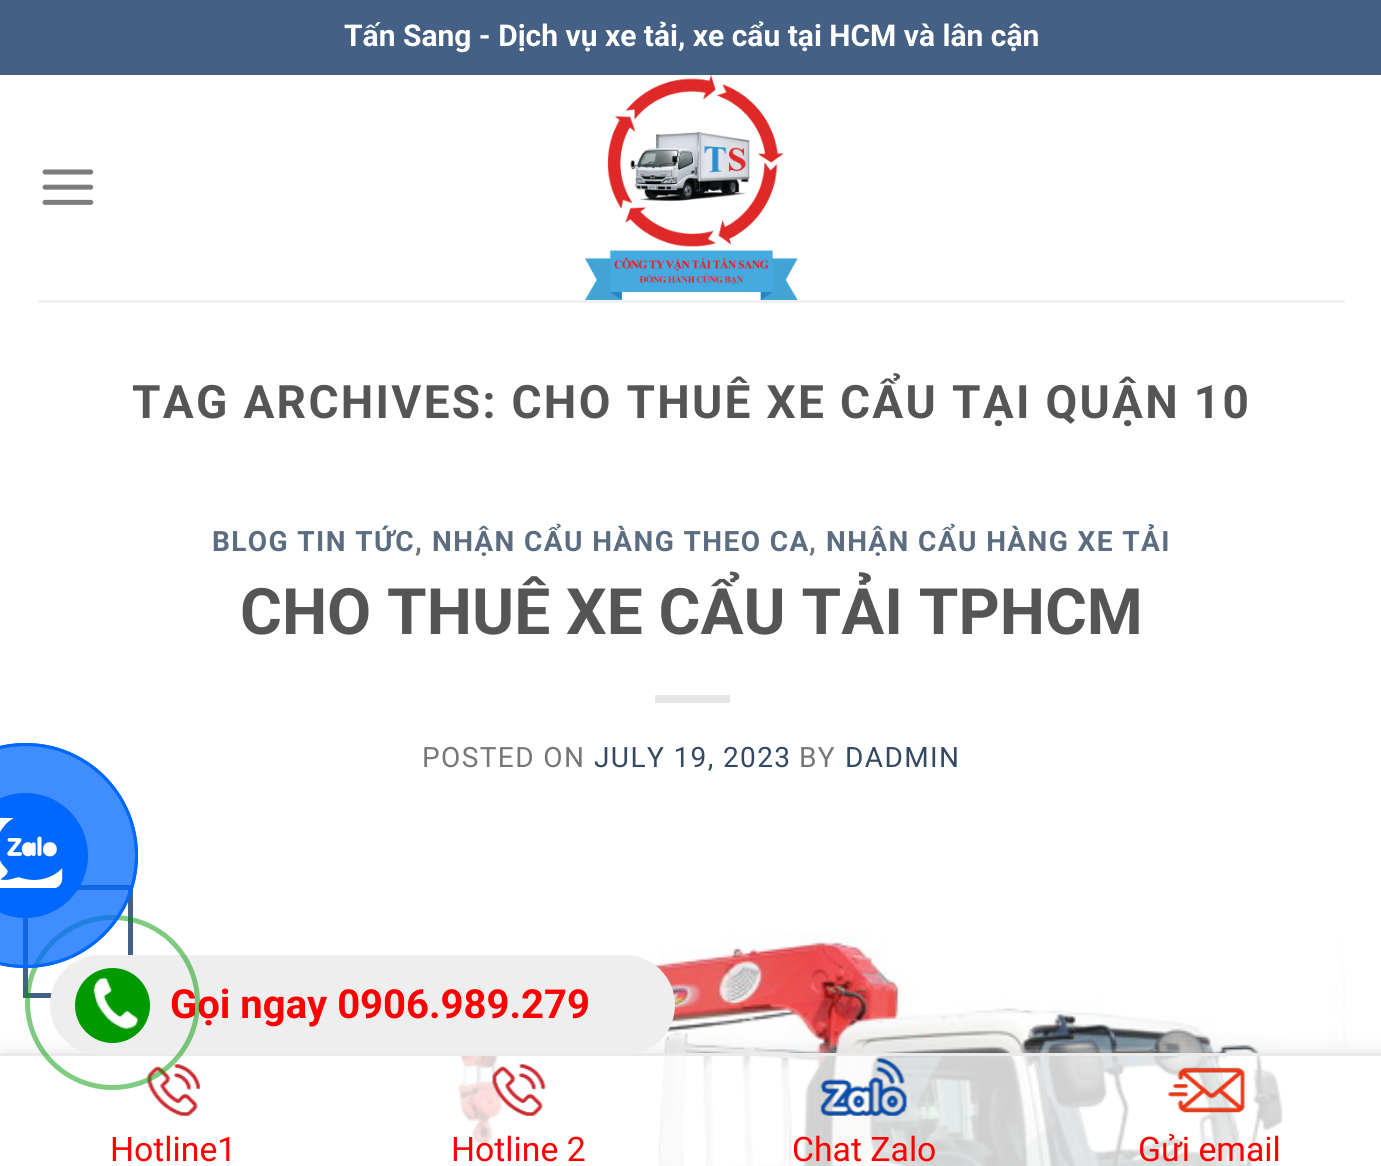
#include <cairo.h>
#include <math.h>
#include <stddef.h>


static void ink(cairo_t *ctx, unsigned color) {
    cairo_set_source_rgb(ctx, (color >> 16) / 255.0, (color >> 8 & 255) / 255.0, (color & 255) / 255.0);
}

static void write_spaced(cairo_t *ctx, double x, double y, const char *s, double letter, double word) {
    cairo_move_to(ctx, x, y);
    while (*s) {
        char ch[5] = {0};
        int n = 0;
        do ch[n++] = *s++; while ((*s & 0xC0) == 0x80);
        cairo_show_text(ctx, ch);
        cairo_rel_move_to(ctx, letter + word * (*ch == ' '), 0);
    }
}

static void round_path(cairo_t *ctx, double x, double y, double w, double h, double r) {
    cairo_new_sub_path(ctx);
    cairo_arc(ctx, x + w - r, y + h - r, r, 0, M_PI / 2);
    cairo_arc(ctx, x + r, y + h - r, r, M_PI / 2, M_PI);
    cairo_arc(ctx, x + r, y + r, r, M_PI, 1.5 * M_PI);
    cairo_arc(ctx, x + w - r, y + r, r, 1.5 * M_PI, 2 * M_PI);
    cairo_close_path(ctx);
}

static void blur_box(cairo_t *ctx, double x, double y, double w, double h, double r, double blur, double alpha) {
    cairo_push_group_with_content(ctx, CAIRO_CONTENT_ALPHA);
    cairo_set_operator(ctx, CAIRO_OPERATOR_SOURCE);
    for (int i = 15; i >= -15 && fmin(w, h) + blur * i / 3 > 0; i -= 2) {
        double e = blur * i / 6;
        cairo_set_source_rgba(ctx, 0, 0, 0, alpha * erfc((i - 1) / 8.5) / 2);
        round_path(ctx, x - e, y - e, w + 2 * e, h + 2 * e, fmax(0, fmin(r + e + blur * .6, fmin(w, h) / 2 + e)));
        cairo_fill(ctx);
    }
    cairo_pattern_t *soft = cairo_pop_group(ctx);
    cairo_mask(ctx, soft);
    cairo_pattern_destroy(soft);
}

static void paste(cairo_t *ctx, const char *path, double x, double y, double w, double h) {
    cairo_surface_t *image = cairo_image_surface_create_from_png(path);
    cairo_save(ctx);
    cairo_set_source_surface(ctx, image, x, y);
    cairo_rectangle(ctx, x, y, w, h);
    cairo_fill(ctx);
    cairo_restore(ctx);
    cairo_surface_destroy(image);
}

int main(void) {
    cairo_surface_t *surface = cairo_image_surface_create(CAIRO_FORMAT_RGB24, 1381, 1166);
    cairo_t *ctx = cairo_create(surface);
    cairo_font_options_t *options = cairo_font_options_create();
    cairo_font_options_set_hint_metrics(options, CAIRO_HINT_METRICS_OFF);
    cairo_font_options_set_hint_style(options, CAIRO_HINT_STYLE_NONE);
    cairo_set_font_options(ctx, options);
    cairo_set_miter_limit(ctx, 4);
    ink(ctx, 0xFFFFFF);
    cairo_paint(ctx);
    ink(ctx, 0x446084);
    cairo_rectangle(ctx, 0, 0, 1381, 75);
    cairo_fill(ctx);
    cairo_select_font_face(ctx, "Roboto", CAIRO_FONT_SLANT_NORMAL, CAIRO_FONT_WEIGHT_BOLD);
    cairo_set_font_size(ctx, 30);
    ink(ctx, 0xFFFFFF);
    cairo_move_to(ctx, 344, 46);
    cairo_show_text(ctx, "Tấn Sang - Dịch vụ xe tải, xe cẩu tại HCM và lân cận");
    paste(ctx, "media/1.png", 42, 169, 52, 36);
    paste(ctx, "media/2.png", 585, 75, 213, 225);
    ink(ctx, 0xF1F1F1);
    cairo_rectangle(ctx, 38, 300, 1307, 3);
    cairo_fill(ctx);
    cairo_set_font_size(ctx, 46);
    ink(ctx, 0x555555);
    write_spaced(ctx, 132, 418, "TAG ARCHIVES: CHO THUÊ XE CẨU TẠI QUẬN 10", 2.3, 0);
    cairo_set_font_size(ctx, 28);
    ink(ctx, 0x5C6D81);
    write_spaced(ctx, 212, 551, "BLOG TIN TỨC", 1.4, 0);
    ink(ctx, 0x777777);
    write_spaced(ctx, 415, 551, ",", 1.4, 0);
    ink(ctx, 0x5C6D81);
    write_spaced(ctx, 432, 551, "NHẬN CẨU HÀNG THEO CA", 1.4, 0);
    ink(ctx, 0x777777);
    write_spaced(ctx, 809, 551, ",", 1.4, 0);
    ink(ctx, 0x5C6D81);
    write_spaced(ctx, 826, 551, "NHẬN CẨU HÀNG XE TẢI", 1.4, 0);
    cairo_set_font_size(ctx, 64);
    ink(ctx, 0x555555);
    cairo_move_to(ctx, 240, 634);
    cairo_show_text(ctx, "CHO THUÊ XE CẨU TẢI TPHCM");
    ink(ctx, 0xE6E6E6);
    cairo_rectangle(ctx, 655, 695, 75, 8);
    cairo_fill(ctx);
    cairo_select_font_face(ctx, "Roboto", CAIRO_FONT_SLANT_NORMAL, CAIRO_FONT_WEIGHT_NORMAL);
    cairo_set_font_size(ctx, 28);
    ink(ctx, 0x777777);
    write_spaced(ctx, 422, 767, "POSTED ON", 1.4, 0);
    ink(ctx, 0x334862);
    write_spaced(ctx, 594, 767, "JULY 19, 2023", 1.4, 0);
    ink(ctx, 0x777777);
    write_spaced(ctx, 799, 767, "BY", 1.4, 0);
    ink(ctx, 0x334862);
    write_spaced(ctx, 845, 767, "DADMIN", 1.4, 0);
    cairo_rectangle(ctx, 25.5, 887.5, 105, 108);
    ink(ctx, 0x446084);
    cairo_set_line_width(ctx, 5);
    cairo_stroke(ctx);
    paste(ctx, "media/3.png", 430, 933, 915, 233);
    cairo_save(ctx);
    cairo_rectangle(ctx, 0, 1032, 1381, 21);
    cairo_clip(ctx);
    ink(ctx, 0xDEDEDE);
    blur_box(ctx, 5, 1055, 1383, 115, 0, 11, 1);
    cairo_restore(ctx);
    ink(ctx, 0xEAEAEA);
    cairo_rectangle(ctx, 0, 1053, 1381, 3);
    cairo_fill(ctx);
    ink(ctx, 0xEEEEEE);
    round_path(ctx, 50, 955, 625, 100, 50);
    cairo_fill(ctx);
    cairo_select_font_face(ctx, "Roboto", CAIRO_FONT_SLANT_NORMAL, CAIRO_FONT_WEIGHT_BOLD);
    cairo_set_font_size(ctx, 40);
    ink(ctx, 0xFF0000);
    cairo_move_to(ctx, 170, 1018);
    cairo_show_text(ctx, "Gọi ngay 0906.989.279");
    paste(ctx, "media/6.png", 147, 1064, 53, 52);
    cairo_arc(ctx, 112.5, 1002.5, 85, 0, 2 * M_PI);
    cairo_set_source_rgba(ctx, 0, 0.6, 0, 0.5);
    cairo_stroke(ctx);
    cairo_set_source_rgba(ctx, 0, 0.408, 1, 0.5);
    cairo_arc(ctx, 25.5, 855.5, 111, 0, 2 * M_PI);
    cairo_fill_preserve(ctx);
    ink(ctx, 0x0068FF);
    cairo_set_line_width(ctx, 3);
    cairo_stroke(ctx);
    cairo_set_source_rgba(ctx, 0, 0.408, 1, 0.5);
    cairo_arc(ctx, 25.5, 855.5, 111, 0, 2 * M_PI);
    cairo_fill_preserve(ctx);
    ink(ctx, 0x0068FF);
    cairo_stroke(ctx);
    cairo_arc(ctx, 25.5, 855.5, 62.5, 0, 2 * M_PI);
    cairo_fill(ctx);
    paste(ctx, "media/4.png", 0, 818, 63, 70);
    ink(ctx, 0x009900);
    cairo_arc(ctx, 112.5, 1005.5, 37.5, 0, 2 * M_PI);
    cairo_fill(ctx);
    paste(ctx, "media/5.png", 93, 977, 45, 52);
    cairo_set_source_rgba(ctx, 1, 1, 1, 0.8);
    cairo_rectangle(ctx, 430, 1056, 915, 110);
    cairo_fill(ctx);
    cairo_select_font_face(ctx, "Roboto", CAIRO_FONT_SLANT_NORMAL, CAIRO_FONT_WEIGHT_NORMAL);
    cairo_set_font_size(ctx, 33.75);
    ink(ctx, 0xFF0000);
    cairo_move_to(ctx, 110, 1161);
    cairo_show_text(ctx, "Hotline1");
    paste(ctx, "media/7.png", 492, 1064, 54, 52);
    cairo_move_to(ctx, 451, 1161);
    cairo_show_text(ctx, "Hotline 2");
    paste(ctx, "media/8.png", 820, 1058, 87, 58);
    cairo_move_to(ctx, 792, 1161);
    cairo_show_text(ctx, "Chat Zalo");
    paste(ctx, "media/9.png", 1168, 1067, 77, 46);
    cairo_move_to(ctx, 1138, 1161);
    cairo_show_text(ctx, "Gửi email");
    cairo_surface_write_to_png(surface, "image.png");
    cairo_font_options_destroy(options);
    cairo_destroy(ctx);
    cairo_surface_destroy(surface);
    return 0;
}
